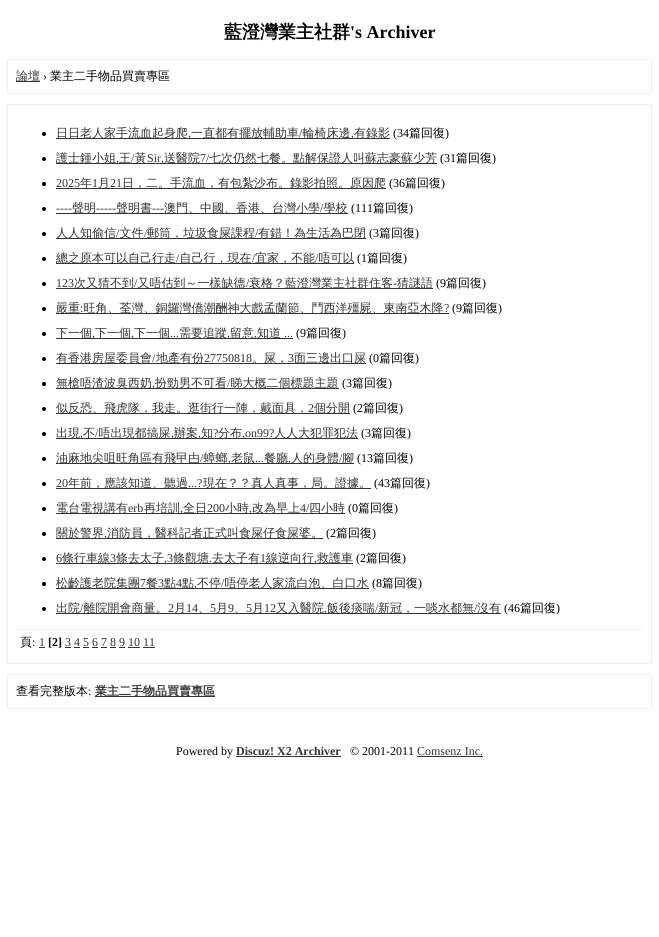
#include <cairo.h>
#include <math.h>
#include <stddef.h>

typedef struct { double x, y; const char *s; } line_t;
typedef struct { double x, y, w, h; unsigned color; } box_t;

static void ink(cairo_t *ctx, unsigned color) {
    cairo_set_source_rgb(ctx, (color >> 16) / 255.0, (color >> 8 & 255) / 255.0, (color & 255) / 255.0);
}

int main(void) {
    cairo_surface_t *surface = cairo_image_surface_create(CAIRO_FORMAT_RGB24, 659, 937);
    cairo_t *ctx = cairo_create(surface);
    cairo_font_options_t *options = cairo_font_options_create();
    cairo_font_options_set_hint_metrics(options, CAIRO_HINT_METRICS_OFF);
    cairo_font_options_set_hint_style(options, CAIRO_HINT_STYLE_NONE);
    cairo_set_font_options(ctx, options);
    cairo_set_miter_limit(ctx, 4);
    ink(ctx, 0xFFFFFF);
    cairo_paint(ctx);
    cairo_select_font_face(ctx, "WenQuanYi Zen Hei", CAIRO_FONT_SLANT_NORMAL, CAIRO_FONT_WEIGHT_BOLD);
    cairo_set_font_size(ctx, 18);
    ink(ctx, 0x000000);
    cairo_move_to(ctx, 224, 38);
    cairo_show_text(ctx, "藍澄灣業主社群");
    cairo_select_font_face(ctx, "Liberation Serif", CAIRO_FONT_SLANT_NORMAL, CAIRO_FONT_WEIGHT_BOLD);
    cairo_move_to(ctx, 350, 38);
    cairo_show_text(ctx, "'s Archiver");
    cairo_rectangle(ctx, 7.5, 59.5, 644, 34);
    ink(ctx, 0xEEEEEE);
    cairo_set_line_width(ctx, 1);
    cairo_stroke(ctx);
    ink(ctx, 0x333333);
    cairo_rectangle(ctx, 16, 81, 24, 1);
    cairo_fill(ctx);
    cairo_select_font_face(ctx, "WenQuanYi Zen Hei Medium", CAIRO_FONT_SLANT_NORMAL, CAIRO_FONT_WEIGHT_NORMAL);
    cairo_set_font_size(ctx, 12);
    cairo_move_to(ctx, 16, 80);
    cairo_show_text(ctx, "論壇");
    cairo_select_font_face(ctx, "Liberation Serif", CAIRO_FONT_SLANT_NORMAL, CAIRO_FONT_WEIGHT_NORMAL);
    ink(ctx, 0x000000);
    cairo_move_to(ctx, 43, 80);
    cairo_show_text(ctx, "›");
    cairo_select_font_face(ctx, "WenQuanYi Zen Hei Medium", CAIRO_FONT_SLANT_NORMAL, CAIRO_FONT_WEIGHT_NORMAL);
    cairo_move_to(ctx, 50, 80);
    cairo_show_text(ctx, "業主二手物品買賣專區");
    cairo_rectangle(ctx, 7.5, 104.5, 644, 559);
    ink(ctx, 0xEEEEEE);
    cairo_stroke(ctx);
    ink(ctx, 0x333333);
    cairo_rectangle(ctx, 56, 138, 334, 1);
    cairo_fill(ctx);
    {
        static const line_t items[] = {
            {56, 137, "日日老人家手流血起身爬"},
            {191, 137, "一直都有擺放輔助車 輪椅床邊"},
            {354, 137, "有錄影"},
        };
        for (size_t i = 0; i < sizeof items / sizeof *items; i++) {
            cairo_move_to(ctx, items[i].x, items[i].y);
            cairo_show_text(ctx, items[i].s);
        }
    }
    cairo_select_font_face(ctx, "Liberation Serif", CAIRO_FONT_SLANT_NORMAL, CAIRO_FONT_WEIGHT_NORMAL);
    ink(ctx, 0x000000);
    cairo_move_to(ctx, 393, 137);
    cairo_show_text(ctx, "(34");
    cairo_select_font_face(ctx, "WenQuanYi Zen Hei Medium", CAIRO_FONT_SLANT_NORMAL, CAIRO_FONT_WEIGHT_NORMAL);
    cairo_move_to(ctx, 409, 137);
    cairo_show_text(ctx, "篇回復");
    cairo_select_font_face(ctx, "Liberation Serif", CAIRO_FONT_SLANT_NORMAL, CAIRO_FONT_WEIGHT_NORMAL);
    cairo_move_to(ctx, 445, 137);
    cairo_show_text(ctx, ")");
    cairo_new_path(ctx);
    cairo_arc(ctx, 44, 134, 2, 0, 2 * M_PI);
    cairo_fill(ctx);
    ink(ctx, 0x333333);
    {
        static const line_t items[] = {
            {299, 137, "/"},
            {188, 137, ","},
            {351, 137, ","},
        };
        for (size_t i = 0; i < sizeof items / sizeof *items; i++) {
            cairo_move_to(ctx, items[i].x, items[i].y);
            cairo_show_text(ctx, items[i].s);
        }
    }
    cairo_rectangle(ctx, 56, 163, 381, 1);
    cairo_fill(ctx);
    cairo_select_font_face(ctx, "WenQuanYi Zen Hei Medium", CAIRO_FONT_SLANT_NORMAL, CAIRO_FONT_WEIGHT_NORMAL);
    {
        static const line_t items[] = {
            {56, 162, "護士鍾小姐"},
            {119, 162, "王 黃"},
            {164, 162, "送醫院"},
        };
        for (size_t i = 0; i < sizeof items / sizeof *items; i++) {
            cairo_move_to(ctx, items[i].x, items[i].y);
            cairo_show_text(ctx, items[i].s);
        }
    }
    cairo_select_font_face(ctx, "Liberation Serif", CAIRO_FONT_SLANT_NORMAL, CAIRO_FONT_WEIGHT_NORMAL);
    cairo_move_to(ctx, 200, 162);
    cairo_show_text(ctx, "7/");
    cairo_select_font_face(ctx, "WenQuanYi Zen Hei Medium", CAIRO_FONT_SLANT_NORMAL, CAIRO_FONT_WEIGHT_NORMAL);
    cairo_move_to(ctx, 209, 162);
    cairo_show_text(ctx, "七次仍然七餐。點解保證人叫蘇志豪蘇少芳");
    cairo_select_font_face(ctx, "Liberation Serif", CAIRO_FONT_SLANT_NORMAL, CAIRO_FONT_WEIGHT_NORMAL);
    ink(ctx, 0x000000);
    cairo_move_to(ctx, 440, 162);
    cairo_show_text(ctx, "(31");
    cairo_select_font_face(ctx, "WenQuanYi Zen Hei Medium", CAIRO_FONT_SLANT_NORMAL, CAIRO_FONT_WEIGHT_NORMAL);
    cairo_move_to(ctx, 456, 162);
    cairo_show_text(ctx, "篇回復");
    cairo_select_font_face(ctx, "Liberation Serif", CAIRO_FONT_SLANT_NORMAL, CAIRO_FONT_WEIGHT_NORMAL);
    cairo_move_to(ctx, 492, 162);
    cairo_show_text(ctx, ")");
    cairo_new_path(ctx);
    cairo_arc(ctx, 44, 159, 2, 0, 2 * M_PI);
    cairo_fill(ctx);
    ink(ctx, 0x333333);
    {
        static const line_t items[] = {
            {131, 162, "/"},
            {147, 162, "Sir,"},
            {116, 162, ","},
        };
        for (size_t i = 0; i < sizeof items / sizeof *items; i++) {
            cairo_move_to(ctx, items[i].x, items[i].y);
            cairo_show_text(ctx, items[i].s);
        }
    }
    ink(ctx, 0x000000);
    cairo_new_path(ctx);
    cairo_arc(ctx, 44, 184, 2, 0, 2 * M_PI);
    cairo_fill(ctx);
    ink(ctx, 0x333333);
    cairo_move_to(ctx, 56, 187);
    cairo_show_text(ctx, "2025");
    cairo_rectangle(ctx, 56, 188, 330, 1);
    cairo_fill(ctx);
    cairo_select_font_face(ctx, "WenQuanYi Zen Hei Medium", CAIRO_FONT_SLANT_NORMAL, CAIRO_FONT_WEIGHT_NORMAL);
    cairo_move_to(ctx, 80, 187);
    cairo_show_text(ctx, "年");
    cairo_select_font_face(ctx, "Liberation Serif", CAIRO_FONT_SLANT_NORMAL, CAIRO_FONT_WEIGHT_NORMAL);
    cairo_move_to(ctx, 92, 187);
    cairo_show_text(ctx, "1");
    cairo_select_font_face(ctx, "WenQuanYi Zen Hei Medium", CAIRO_FONT_SLANT_NORMAL, CAIRO_FONT_WEIGHT_NORMAL);
    cairo_move_to(ctx, 98, 187);
    cairo_show_text(ctx, "月");
    cairo_select_font_face(ctx, "Liberation Serif", CAIRO_FONT_SLANT_NORMAL, CAIRO_FONT_WEIGHT_NORMAL);
    cairo_move_to(ctx, 110, 187);
    cairo_show_text(ctx, "21");
    cairo_select_font_face(ctx, "WenQuanYi Zen Hei Medium", CAIRO_FONT_SLANT_NORMAL, CAIRO_FONT_WEIGHT_NORMAL);
    cairo_move_to(ctx, 122, 187);
    cairo_show_text(ctx, "日，二。手流血，有包紮沙布。錄影拍照。原因爬");
    cairo_select_font_face(ctx, "Liberation Serif", CAIRO_FONT_SLANT_NORMAL, CAIRO_FONT_WEIGHT_NORMAL);
    ink(ctx, 0x000000);
    cairo_move_to(ctx, 389, 187);
    cairo_show_text(ctx, "(36");
    cairo_select_font_face(ctx, "WenQuanYi Zen Hei Medium", CAIRO_FONT_SLANT_NORMAL, CAIRO_FONT_WEIGHT_NORMAL);
    cairo_move_to(ctx, 405, 187);
    cairo_show_text(ctx, "篇回復");
    cairo_select_font_face(ctx, "Liberation Serif", CAIRO_FONT_SLANT_NORMAL, CAIRO_FONT_WEIGHT_NORMAL);
    cairo_move_to(ctx, 441, 187);
    cairo_show_text(ctx, ")");
    ink(ctx, 0x333333);
    cairo_move_to(ctx, 56, 212);
    cairo_show_text(ctx, "----");
    cairo_rectangle(ctx, 56, 213, 292, 1);
    cairo_fill(ctx);
    cairo_select_font_face(ctx, "WenQuanYi Zen Hei Medium", CAIRO_FONT_SLANT_NORMAL, CAIRO_FONT_WEIGHT_NORMAL);
    {
        static const line_t items[] = {
            {72, 212, "聲明"},
            {116, 212, "聲明書"},
            {164, 212, "澳門、中國、香港、台灣小學 學校"},
        };
        for (size_t i = 0; i < sizeof items / sizeof *items; i++) {
            cairo_move_to(ctx, items[i].x, items[i].y);
            cairo_show_text(ctx, items[i].s);
        }
    }
    cairo_select_font_face(ctx, "Liberation Serif", CAIRO_FONT_SLANT_NORMAL, CAIRO_FONT_WEIGHT_NORMAL);
    ink(ctx, 0x000000);
    cairo_move_to(ctx, 351, 212);
    cairo_show_text(ctx, "(111");
    cairo_select_font_face(ctx, "WenQuanYi Zen Hei Medium", CAIRO_FONT_SLANT_NORMAL, CAIRO_FONT_WEIGHT_NORMAL);
    cairo_move_to(ctx, 373, 212);
    cairo_show_text(ctx, "篇回復");
    cairo_select_font_face(ctx, "Liberation Serif", CAIRO_FONT_SLANT_NORMAL, CAIRO_FONT_WEIGHT_NORMAL);
    cairo_move_to(ctx, 409, 212);
    cairo_show_text(ctx, ")");
    cairo_new_path(ctx);
    cairo_arc(ctx, 44, 209, 2, 0, 2 * M_PI);
    cairo_fill(ctx);
    ink(ctx, 0x333333);
    {
        static const line_t items[] = {
            {96, 212, "-----"},
            {152, 212, "---"},
            {320, 212, "/"},
        };
        for (size_t i = 0; i < sizeof items / sizeof *items; i++) {
            cairo_move_to(ctx, items[i].x, items[i].y);
            cairo_show_text(ctx, items[i].s);
        }
    }
    cairo_rectangle(ctx, 56, 238, 310, 1);
    cairo_fill(ctx);
    cairo_select_font_face(ctx, "WenQuanYi Zen Hei Medium", CAIRO_FONT_SLANT_NORMAL, CAIRO_FONT_WEIGHT_NORMAL);
    cairo_move_to(ctx, 56, 237);
    cairo_show_text(ctx, "人人知偷信 文件");
    cairo_select_font_face(ctx, "Liberation Serif", CAIRO_FONT_SLANT_NORMAL, CAIRO_FONT_WEIGHT_NORMAL);
    cairo_move_to(ctx, 144, 237);
    cairo_show_text(ctx, "/");
    cairo_select_font_face(ctx, "WenQuanYi Zen Hei Medium", CAIRO_FONT_SLANT_NORMAL, CAIRO_FONT_WEIGHT_NORMAL);
    cairo_move_to(ctx, 147, 237);
    cairo_show_text(ctx, "郵筒，垃圾食屎課程");
    cairo_select_font_face(ctx, "Liberation Serif", CAIRO_FONT_SLANT_NORMAL, CAIRO_FONT_WEIGHT_NORMAL);
    cairo_move_to(ctx, 255, 237);
    cairo_show_text(ctx, "/");
    cairo_select_font_face(ctx, "WenQuanYi Zen Hei Medium", CAIRO_FONT_SLANT_NORMAL, CAIRO_FONT_WEIGHT_NORMAL);
    cairo_move_to(ctx, 258, 237);
    cairo_show_text(ctx, "有錯！為生活為巴閉");
    cairo_select_font_face(ctx, "Liberation Serif", CAIRO_FONT_SLANT_NORMAL, CAIRO_FONT_WEIGHT_NORMAL);
    ink(ctx, 0x000000);
    cairo_move_to(ctx, 369, 237);
    cairo_show_text(ctx, "(3");
    cairo_select_font_face(ctx, "WenQuanYi Zen Hei Medium", CAIRO_FONT_SLANT_NORMAL, CAIRO_FONT_WEIGHT_NORMAL);
    cairo_move_to(ctx, 379, 237);
    cairo_show_text(ctx, "篇回復");
    cairo_select_font_face(ctx, "Liberation Serif", CAIRO_FONT_SLANT_NORMAL, CAIRO_FONT_WEIGHT_NORMAL);
    cairo_move_to(ctx, 415, 237);
    cairo_show_text(ctx, ")");
    cairo_new_path(ctx);
    cairo_arc(ctx, 44, 234, 2, 0, 2 * M_PI);
    cairo_fill(ctx);
    ink(ctx, 0x333333);
    cairo_move_to(ctx, 116, 237);
    cairo_show_text(ctx, "/");
    cairo_rectangle(ctx, 56, 263, 298, 1);
    cairo_fill(ctx);
    cairo_select_font_face(ctx, "WenQuanYi Zen Hei Medium", CAIRO_FONT_SLANT_NORMAL, CAIRO_FONT_WEIGHT_NORMAL);
    cairo_move_to(ctx, 56, 262);
    cairo_show_text(ctx, "總之原本可以自己行走 自己行，現在");
    cairo_select_font_face(ctx, "Liberation Serif", CAIRO_FONT_SLANT_NORMAL, CAIRO_FONT_WEIGHT_NORMAL);
    cairo_move_to(ctx, 252, 262);
    cairo_show_text(ctx, "/");
    cairo_select_font_face(ctx, "WenQuanYi Zen Hei Medium", CAIRO_FONT_SLANT_NORMAL, CAIRO_FONT_WEIGHT_NORMAL);
    cairo_move_to(ctx, 255, 262);
    cairo_show_text(ctx, "宜家，不能 唔可以");
    cairo_select_font_face(ctx, "Liberation Serif", CAIRO_FONT_SLANT_NORMAL, CAIRO_FONT_WEIGHT_NORMAL);
    ink(ctx, 0x000000);
    cairo_move_to(ctx, 357, 262);
    cairo_show_text(ctx, "(1");
    cairo_select_font_face(ctx, "WenQuanYi Zen Hei Medium", CAIRO_FONT_SLANT_NORMAL, CAIRO_FONT_WEIGHT_NORMAL);
    cairo_move_to(ctx, 367, 262);
    cairo_show_text(ctx, "篇回復");
    cairo_select_font_face(ctx, "Liberation Serif", CAIRO_FONT_SLANT_NORMAL, CAIRO_FONT_WEIGHT_NORMAL);
    cairo_move_to(ctx, 403, 262);
    cairo_show_text(ctx, ")");
    cairo_new_path(ctx);
    cairo_arc(ctx, 44, 259, 2, 0, 2 * M_PI);
    cairo_fill(ctx);
    ink(ctx, 0x333333);
    {
        static const line_t items[] = {
            {176, 262, "/"},
            {315, 262, "/"},
            {56, 287, "123"},
        };
        for (size_t i = 0; i < sizeof items / sizeof *items; i++) {
            cairo_move_to(ctx, items[i].x, items[i].y);
            cairo_show_text(ctx, items[i].s);
        }
    }
    cairo_rectangle(ctx, 56, 288, 377, 1);
    cairo_fill(ctx);
    cairo_select_font_face(ctx, "WenQuanYi Zen Hei Medium", CAIRO_FONT_SLANT_NORMAL, CAIRO_FONT_WEIGHT_NORMAL);
    cairo_move_to(ctx, 74, 287);
    cairo_show_text(ctx, "次又猜不到 又唔估到～一樣缺德");
    cairo_select_font_face(ctx, "Liberation Serif", CAIRO_FONT_SLANT_NORMAL, CAIRO_FONT_WEIGHT_NORMAL);
    cairo_move_to(ctx, 246, 287);
    cairo_show_text(ctx, "/");
    cairo_select_font_face(ctx, "WenQuanYi Zen Hei Medium", CAIRO_FONT_SLANT_NORMAL, CAIRO_FONT_WEIGHT_NORMAL);
    cairo_move_to(ctx, 249, 287);
    cairo_show_text(ctx, "衰格？藍澄灣業主社群住客");
    cairo_move_to(ctx, 397, 287);
    cairo_show_text(ctx, "猜謎語");
    cairo_select_font_face(ctx, "Liberation Serif", CAIRO_FONT_SLANT_NORMAL, CAIRO_FONT_WEIGHT_NORMAL);
    ink(ctx, 0x000000);
    cairo_move_to(ctx, 436, 287);
    cairo_show_text(ctx, "(9");
    cairo_select_font_face(ctx, "WenQuanYi Zen Hei Medium", CAIRO_FONT_SLANT_NORMAL, CAIRO_FONT_WEIGHT_NORMAL);
    cairo_move_to(ctx, 446, 287);
    cairo_show_text(ctx, "篇回復");
    cairo_select_font_face(ctx, "Liberation Serif", CAIRO_FONT_SLANT_NORMAL, CAIRO_FONT_WEIGHT_NORMAL);
    cairo_move_to(ctx, 482, 287);
    cairo_show_text(ctx, ")");
    cairo_new_path(ctx);
    cairo_arc(ctx, 44, 284, 2, 0, 2 * M_PI);
    cairo_fill(ctx);
    ink(ctx, 0x333333);
    cairo_move_to(ctx, 134, 287);
    cairo_show_text(ctx, "/");
    cairo_move_to(ctx, 393, 287);
    cairo_show_text(ctx, "-");
    cairo_rectangle(ctx, 56, 313, 393, 1);
    cairo_fill(ctx);
    cairo_select_font_face(ctx, "WenQuanYi Zen Hei Medium", CAIRO_FONT_SLANT_NORMAL, CAIRO_FONT_WEIGHT_NORMAL);
    cairo_move_to(ctx, 56, 312);
    cairo_show_text(ctx, "嚴重 旺角、荃灣、銅鑼灣僑潮酬神大戲孟蘭節、鬥西洋殭屍、東南亞木降");
    cairo_select_font_face(ctx, "Liberation Serif", CAIRO_FONT_SLANT_NORMAL, CAIRO_FONT_WEIGHT_NORMAL);
    cairo_move_to(ctx, 444, 312);
    cairo_show_text(ctx, "?");
    ink(ctx, 0x000000);
    cairo_move_to(ctx, 452, 312);
    cairo_show_text(ctx, "(9");
    cairo_select_font_face(ctx, "WenQuanYi Zen Hei Medium", CAIRO_FONT_SLANT_NORMAL, CAIRO_FONT_WEIGHT_NORMAL);
    cairo_move_to(ctx, 462, 312);
    cairo_show_text(ctx, "篇回復");
    cairo_select_font_face(ctx, "Liberation Serif", CAIRO_FONT_SLANT_NORMAL, CAIRO_FONT_WEIGHT_NORMAL);
    cairo_move_to(ctx, 498, 312);
    cairo_show_text(ctx, ")");
    cairo_new_path(ctx);
    cairo_arc(ctx, 44, 309, 2, 0, 2 * M_PI);
    cairo_fill(ctx);
    ink(ctx, 0x333333);
    cairo_move_to(ctx, 80, 312);
    cairo_show_text(ctx, ":");
    ink(ctx, 0x000000);
    cairo_new_path(ctx);
    cairo_arc(ctx, 44, 334, 2, 0, 2 * M_PI);
    cairo_fill(ctx);
    ink(ctx, 0x333333);
    cairo_rectangle(ctx, 56, 338, 237, 1);
    cairo_fill(ctx);
    cairo_select_font_face(ctx, "WenQuanYi Zen Hei Medium", CAIRO_FONT_SLANT_NORMAL, CAIRO_FONT_WEIGHT_NORMAL);
    {
        static const line_t items[] = {
            {56, 337, "下一個"},
            {95, 337, "下一個"},
            {134, 337, "下一個"},
            {179, 337, "需要追蹤"},
            {230, 337, "留意"},
            {257, 337, "知道"},
        };
        for (size_t i = 0; i < sizeof items / sizeof *items; i++) {
            cairo_move_to(ctx, items[i].x, items[i].y);
            cairo_show_text(ctx, items[i].s);
        }
    }
    cairo_select_font_face(ctx, "Liberation Serif", CAIRO_FONT_SLANT_NORMAL, CAIRO_FONT_WEIGHT_NORMAL);
    ink(ctx, 0x000000);
    cairo_move_to(ctx, 296, 337);
    cairo_show_text(ctx, "(9");
    cairo_select_font_face(ctx, "WenQuanYi Zen Hei Medium", CAIRO_FONT_SLANT_NORMAL, CAIRO_FONT_WEIGHT_NORMAL);
    cairo_move_to(ctx, 306, 337);
    cairo_show_text(ctx, "篇回復");
    cairo_select_font_face(ctx, "Liberation Serif", CAIRO_FONT_SLANT_NORMAL, CAIRO_FONT_WEIGHT_NORMAL);
    cairo_move_to(ctx, 342, 337);
    cairo_show_text(ctx, ")");
    ink(ctx, 0x333333);
    {
        static const line_t items[] = {
            {92, 337, ","},
            {131, 337, ","},
            {170, 337, "..."},
            {227, 337, ","},
            {254, 337, ","},
            {284, 337, "..."},
        };
        for (size_t i = 0; i < sizeof items / sizeof *items; i++) {
            cairo_move_to(ctx, items[i].x, items[i].y);
            cairo_show_text(ctx, items[i].s);
        }
    }
    ink(ctx, 0x000000);
    cairo_new_path(ctx);
    cairo_arc(ctx, 44, 359, 2, 0, 2 * M_PI);
    cairo_fill(ctx);
    ink(ctx, 0x333333);
    cairo_rectangle(ctx, 56, 363, 310, 1);
    cairo_fill(ctx);
    cairo_select_font_face(ctx, "WenQuanYi Zen Hei Medium", CAIRO_FONT_SLANT_NORMAL, CAIRO_FONT_WEIGHT_NORMAL);
    cairo_move_to(ctx, 56, 362);
    cairo_show_text(ctx, "有香港房屋委員會");
    cairo_select_font_face(ctx, "Liberation Serif", CAIRO_FONT_SLANT_NORMAL, CAIRO_FONT_WEIGHT_NORMAL);
    cairo_move_to(ctx, 152, 362);
    cairo_show_text(ctx, "/");
    cairo_select_font_face(ctx, "WenQuanYi Zen Hei Medium", CAIRO_FONT_SLANT_NORMAL, CAIRO_FONT_WEIGHT_NORMAL);
    cairo_move_to(ctx, 156, 362);
    cairo_show_text(ctx, "地產有份");
    cairo_select_font_face(ctx, "Liberation Serif", CAIRO_FONT_SLANT_NORMAL, CAIRO_FONT_WEIGHT_NORMAL);
    cairo_move_to(ctx, 204, 362);
    cairo_show_text(ctx, "27750818");
    cairo_select_font_face(ctx, "WenQuanYi Zen Hei Medium", CAIRO_FONT_SLANT_NORMAL, CAIRO_FONT_WEIGHT_NORMAL);
    cairo_move_to(ctx, 252, 362);
    cairo_show_text(ctx, "。屎，");
    cairo_select_font_face(ctx, "Liberation Serif", CAIRO_FONT_SLANT_NORMAL, CAIRO_FONT_WEIGHT_NORMAL);
    cairo_move_to(ctx, 288, 362);
    cairo_show_text(ctx, "3");
    cairo_select_font_face(ctx, "WenQuanYi Zen Hei Medium", CAIRO_FONT_SLANT_NORMAL, CAIRO_FONT_WEIGHT_NORMAL);
    cairo_move_to(ctx, 294, 362);
    cairo_show_text(ctx, "面三邊出口屎");
    cairo_select_font_face(ctx, "Liberation Serif", CAIRO_FONT_SLANT_NORMAL, CAIRO_FONT_WEIGHT_NORMAL);
    ink(ctx, 0x000000);
    cairo_move_to(ctx, 369, 362);
    cairo_show_text(ctx, "(0");
    cairo_select_font_face(ctx, "WenQuanYi Zen Hei Medium", CAIRO_FONT_SLANT_NORMAL, CAIRO_FONT_WEIGHT_NORMAL);
    cairo_move_to(ctx, 379, 362);
    cairo_show_text(ctx, "篇回復");
    cairo_select_font_face(ctx, "Liberation Serif", CAIRO_FONT_SLANT_NORMAL, CAIRO_FONT_WEIGHT_NORMAL);
    cairo_move_to(ctx, 415, 362);
    cairo_show_text(ctx, ")");
    ink(ctx, 0x333333);
    cairo_rectangle(ctx, 56, 388, 283, 1);
    cairo_fill(ctx);
    cairo_select_font_face(ctx, "WenQuanYi Zen Hei Medium", CAIRO_FONT_SLANT_NORMAL, CAIRO_FONT_WEIGHT_NORMAL);
    cairo_move_to(ctx, 56, 387);
    cairo_show_text(ctx, "無槍唔渣波臭西奶");
    cairo_move_to(ctx, 155, 387);
    cairo_show_text(ctx, "扮勁男不可看 睇大概二個標題主題");
    cairo_select_font_face(ctx, "Liberation Serif", CAIRO_FONT_SLANT_NORMAL, CAIRO_FONT_WEIGHT_NORMAL);
    ink(ctx, 0x000000);
    cairo_move_to(ctx, 342, 387);
    cairo_show_text(ctx, "(3");
    cairo_select_font_face(ctx, "WenQuanYi Zen Hei Medium", CAIRO_FONT_SLANT_NORMAL, CAIRO_FONT_WEIGHT_NORMAL);
    cairo_move_to(ctx, 352, 387);
    cairo_show_text(ctx, "篇回復");
    cairo_select_font_face(ctx, "Liberation Serif", CAIRO_FONT_SLANT_NORMAL, CAIRO_FONT_WEIGHT_NORMAL);
    cairo_move_to(ctx, 388, 387);
    cairo_show_text(ctx, ")");
    cairo_new_path(ctx);
    cairo_arc(ctx, 44, 384, 2, 0, 2 * M_PI);
    cairo_fill(ctx);
    ink(ctx, 0x333333);
    cairo_move_to(ctx, 227, 387);
    cairo_show_text(ctx, "/");
    cairo_move_to(ctx, 152, 387);
    cairo_show_text(ctx, ",");
    ink(ctx, 0x000000);
    cairo_new_path(ctx);
    cairo_arc(ctx, 44, 409, 2, 0, 2 * M_PI);
    cairo_fill(ctx);
    ink(ctx, 0x333333);
    cairo_rectangle(ctx, 56, 413, 294, 1);
    cairo_fill(ctx);
    cairo_select_font_face(ctx, "WenQuanYi Zen Hei Medium", CAIRO_FONT_SLANT_NORMAL, CAIRO_FONT_WEIGHT_NORMAL);
    cairo_move_to(ctx, 56, 412);
    cairo_show_text(ctx, "似反恐、飛虎隊，我走。逛街行一陣，戴面具，");
    cairo_select_font_face(ctx, "Liberation Serif", CAIRO_FONT_SLANT_NORMAL, CAIRO_FONT_WEIGHT_NORMAL);
    cairo_move_to(ctx, 308, 412);
    cairo_show_text(ctx, "2");
    cairo_select_font_face(ctx, "WenQuanYi Zen Hei Medium", CAIRO_FONT_SLANT_NORMAL, CAIRO_FONT_WEIGHT_NORMAL);
    cairo_move_to(ctx, 314, 412);
    cairo_show_text(ctx, "個分開");
    cairo_select_font_face(ctx, "Liberation Serif", CAIRO_FONT_SLANT_NORMAL, CAIRO_FONT_WEIGHT_NORMAL);
    ink(ctx, 0x000000);
    cairo_move_to(ctx, 353, 412);
    cairo_show_text(ctx, "(2");
    cairo_select_font_face(ctx, "WenQuanYi Zen Hei Medium", CAIRO_FONT_SLANT_NORMAL, CAIRO_FONT_WEIGHT_NORMAL);
    cairo_move_to(ctx, 363, 412);
    cairo_show_text(ctx, "篇回復");
    cairo_select_font_face(ctx, "Liberation Serif", CAIRO_FONT_SLANT_NORMAL, CAIRO_FONT_WEIGHT_NORMAL);
    cairo_move_to(ctx, 399, 412);
    cairo_show_text(ctx, ")");
    ink(ctx, 0x333333);
    cairo_rectangle(ctx, 56, 438, 302, 1);
    cairo_fill(ctx);
    cairo_select_font_face(ctx, "WenQuanYi Zen Hei Medium", CAIRO_FONT_SLANT_NORMAL, CAIRO_FONT_WEIGHT_NORMAL);
    {
        static const line_t items[] = {
            {56, 437, "出現"},
            {83, 437, "不 唔出現都搞屎"},
            {174, 437, "辦案"},
            {201, 437, "知"},
            {218, 437, "分布"},
            {274, 437, "人人大犯罪犯法"},
        };
        for (size_t i = 0; i < sizeof items / sizeof *items; i++) {
            cairo_move_to(ctx, items[i].x, items[i].y);
            cairo_show_text(ctx, items[i].s);
        }
    }
    cairo_select_font_face(ctx, "Liberation Serif", CAIRO_FONT_SLANT_NORMAL, CAIRO_FONT_WEIGHT_NORMAL);
    ink(ctx, 0x000000);
    cairo_move_to(ctx, 361, 437);
    cairo_show_text(ctx, "(3");
    cairo_select_font_face(ctx, "WenQuanYi Zen Hei Medium", CAIRO_FONT_SLANT_NORMAL, CAIRO_FONT_WEIGHT_NORMAL);
    cairo_move_to(ctx, 371, 437);
    cairo_show_text(ctx, "篇回復");
    cairo_select_font_face(ctx, "Liberation Serif", CAIRO_FONT_SLANT_NORMAL, CAIRO_FONT_WEIGHT_NORMAL);
    cairo_move_to(ctx, 407, 437);
    cairo_show_text(ctx, ")");
    cairo_new_path(ctx);
    cairo_arc(ctx, 44, 434, 2, 0, 2 * M_PI);
    cairo_fill(ctx);
    ink(ctx, 0x333333);
    {
        static const line_t items[] = {
            {95, 437, "/"},
            {213, 437, "?"},
            {242, 437, ",on99?"},
            {80, 437, ","},
            {171, 437, ","},
            {198, 437, ","},
        };
        for (size_t i = 0; i < sizeof items / sizeof *items; i++) {
            cairo_move_to(ctx, items[i].x, items[i].y);
            cairo_show_text(ctx, items[i].s);
        }
    }
    cairo_rectangle(ctx, 56, 463, 298, 1);
    cairo_fill(ctx);
    cairo_select_font_face(ctx, "WenQuanYi Zen Hei Medium", CAIRO_FONT_SLANT_NORMAL, CAIRO_FONT_WEIGHT_NORMAL);
    {
        static const line_t items[] = {
            {56, 462, "油麻地尖咀旺角區有飛曱甴 蟑螂"},
            {231, 462, "老鼠"},
            {264, 462, "餐廳"},
            {291, 462, "人的身體"},
        };
        for (size_t i = 0; i < sizeof items / sizeof *items; i++) {
            cairo_move_to(ctx, items[i].x, items[i].y);
            cairo_show_text(ctx, items[i].s);
        }
    }
    cairo_select_font_face(ctx, "Liberation Serif", CAIRO_FONT_SLANT_NORMAL, CAIRO_FONT_WEIGHT_NORMAL);
    cairo_move_to(ctx, 339, 462);
    cairo_show_text(ctx, "/");
    cairo_select_font_face(ctx, "WenQuanYi Zen Hei Medium", CAIRO_FONT_SLANT_NORMAL, CAIRO_FONT_WEIGHT_NORMAL);
    cairo_move_to(ctx, 342, 462);
    cairo_show_text(ctx, "腳");
    cairo_select_font_face(ctx, "Liberation Serif", CAIRO_FONT_SLANT_NORMAL, CAIRO_FONT_WEIGHT_NORMAL);
    ink(ctx, 0x000000);
    cairo_move_to(ctx, 357, 462);
    cairo_show_text(ctx, "(13");
    cairo_select_font_face(ctx, "WenQuanYi Zen Hei Medium", CAIRO_FONT_SLANT_NORMAL, CAIRO_FONT_WEIGHT_NORMAL);
    cairo_move_to(ctx, 373, 462);
    cairo_show_text(ctx, "篇回復");
    cairo_select_font_face(ctx, "Liberation Serif", CAIRO_FONT_SLANT_NORMAL, CAIRO_FONT_WEIGHT_NORMAL);
    cairo_move_to(ctx, 409, 462);
    cairo_show_text(ctx, ")");
    cairo_new_path(ctx);
    cairo_arc(ctx, 44, 459, 2, 0, 2 * M_PI);
    cairo_fill(ctx);
    ink(ctx, 0x333333);
    {
        static const line_t items[] = {
            {200, 462, "/"},
            {228, 462, ","},
            {255, 462, "..."},
            {288, 462, ","},
        };
        for (size_t i = 0; i < sizeof items / sizeof *items; i++) {
            cairo_move_to(ctx, items[i].x, items[i].y);
            cairo_show_text(ctx, items[i].s);
        }
    }
    ink(ctx, 0x000000);
    cairo_new_path(ctx);
    cairo_arc(ctx, 44, 484, 2, 0, 2 * M_PI);
    cairo_fill(ctx);
    ink(ctx, 0x333333);
    cairo_move_to(ctx, 56, 487);
    cairo_show_text(ctx, "20");
    cairo_rectangle(ctx, 56, 488, 315, 1);
    cairo_fill(ctx);
    cairo_select_font_face(ctx, "WenQuanYi Zen Hei Medium", CAIRO_FONT_SLANT_NORMAL, CAIRO_FONT_WEIGHT_NORMAL);
    cairo_move_to(ctx, 68, 487);
    cairo_show_text(ctx, "年前，應該知道、聽過");
    cairo_select_font_face(ctx, "Liberation Serif", CAIRO_FONT_SLANT_NORMAL, CAIRO_FONT_WEIGHT_NORMAL);
    cairo_move_to(ctx, 188, 487);
    cairo_show_text(ctx, "...?");
    cairo_select_font_face(ctx, "WenQuanYi Zen Hei Medium", CAIRO_FONT_SLANT_NORMAL, CAIRO_FONT_WEIGHT_NORMAL);
    cairo_move_to(ctx, 203, 487);
    cairo_show_text(ctx, "現在？？真人真事，局。證據。");
    cairo_select_font_face(ctx, "Liberation Serif", CAIRO_FONT_SLANT_NORMAL, CAIRO_FONT_WEIGHT_NORMAL);
    ink(ctx, 0x000000);
    cairo_move_to(ctx, 374, 487);
    cairo_show_text(ctx, "(43");
    cairo_select_font_face(ctx, "WenQuanYi Zen Hei Medium", CAIRO_FONT_SLANT_NORMAL, CAIRO_FONT_WEIGHT_NORMAL);
    cairo_move_to(ctx, 390, 487);
    cairo_show_text(ctx, "篇回復");
    cairo_select_font_face(ctx, "Liberation Serif", CAIRO_FONT_SLANT_NORMAL, CAIRO_FONT_WEIGHT_NORMAL);
    cairo_move_to(ctx, 426, 487);
    cairo_show_text(ctx, ")");
    cairo_new_path(ctx);
    cairo_arc(ctx, 44, 509, 2, 0, 2 * M_PI);
    cairo_fill(ctx);
    ink(ctx, 0x333333);
    cairo_rectangle(ctx, 56, 513, 289, 1);
    cairo_fill(ctx);
    cairo_select_font_face(ctx, "WenQuanYi Zen Hei Medium", CAIRO_FONT_SLANT_NORMAL, CAIRO_FONT_WEIGHT_NORMAL);
    cairo_move_to(ctx, 56, 512);
    cairo_show_text(ctx, "電台電視講有");
    cairo_select_font_face(ctx, "Liberation Serif", CAIRO_FONT_SLANT_NORMAL, CAIRO_FONT_WEIGHT_NORMAL);
    cairo_move_to(ctx, 128, 512);
    cairo_show_text(ctx, "erb");
    cairo_select_font_face(ctx, "WenQuanYi Zen Hei Medium", CAIRO_FONT_SLANT_NORMAL, CAIRO_FONT_WEIGHT_NORMAL);
    cairo_move_to(ctx, 144, 512);
    cairo_show_text(ctx, "再培訓");
    cairo_move_to(ctx, 183, 512);
    cairo_show_text(ctx, "全日");
    cairo_select_font_face(ctx, "Liberation Serif", CAIRO_FONT_SLANT_NORMAL, CAIRO_FONT_WEIGHT_NORMAL);
    cairo_move_to(ctx, 207, 512);
    cairo_show_text(ctx, "200");
    cairo_select_font_face(ctx, "WenQuanYi Zen Hei Medium", CAIRO_FONT_SLANT_NORMAL, CAIRO_FONT_WEIGHT_NORMAL);
    cairo_move_to(ctx, 225, 512);
    cairo_show_text(ctx, "小時");
    cairo_move_to(ctx, 252, 512);
    cairo_show_text(ctx, "改為早上");
    cairo_select_font_face(ctx, "Liberation Serif", CAIRO_FONT_SLANT_NORMAL, CAIRO_FONT_WEIGHT_NORMAL);
    cairo_move_to(ctx, 300, 512);
    cairo_show_text(ctx, "4/");
    cairo_select_font_face(ctx, "WenQuanYi Zen Hei Medium", CAIRO_FONT_SLANT_NORMAL, CAIRO_FONT_WEIGHT_NORMAL);
    cairo_move_to(ctx, 309, 512);
    cairo_show_text(ctx, "四小時");
    cairo_select_font_face(ctx, "Liberation Serif", CAIRO_FONT_SLANT_NORMAL, CAIRO_FONT_WEIGHT_NORMAL);
    ink(ctx, 0x000000);
    cairo_move_to(ctx, 348, 512);
    cairo_show_text(ctx, "(0");
    cairo_select_font_face(ctx, "WenQuanYi Zen Hei Medium", CAIRO_FONT_SLANT_NORMAL, CAIRO_FONT_WEIGHT_NORMAL);
    cairo_move_to(ctx, 358, 512);
    cairo_show_text(ctx, "篇回復");
    cairo_select_font_face(ctx, "Liberation Serif", CAIRO_FONT_SLANT_NORMAL, CAIRO_FONT_WEIGHT_NORMAL);
    cairo_move_to(ctx, 394, 512);
    cairo_show_text(ctx, ")");
    ink(ctx, 0x333333);
    cairo_move_to(ctx, 180, 512);
    cairo_show_text(ctx, ",");
    cairo_move_to(ctx, 249, 512);
    cairo_show_text(ctx, ",");
    ink(ctx, 0x000000);
    cairo_new_path(ctx);
    cairo_arc(ctx, 44, 534, 2, 0, 2 * M_PI);
    cairo_fill(ctx);
    ink(ctx, 0x333333);
    cairo_rectangle(ctx, 56, 538, 267, 1);
    cairo_fill(ctx);
    cairo_select_font_face(ctx, "WenQuanYi Zen Hei Medium", CAIRO_FONT_SLANT_NORMAL, CAIRO_FONT_WEIGHT_NORMAL);
    cairo_move_to(ctx, 56, 537);
    cairo_show_text(ctx, "關於警界");
    cairo_move_to(ctx, 107, 537);
    cairo_show_text(ctx, "消防員，醫科記者正式叫食屎仔食屎婆。");
    cairo_select_font_face(ctx, "Liberation Serif", CAIRO_FONT_SLANT_NORMAL, CAIRO_FONT_WEIGHT_NORMAL);
    ink(ctx, 0x000000);
    cairo_move_to(ctx, 326, 537);
    cairo_show_text(ctx, "(2");
    cairo_select_font_face(ctx, "WenQuanYi Zen Hei Medium", CAIRO_FONT_SLANT_NORMAL, CAIRO_FONT_WEIGHT_NORMAL);
    cairo_move_to(ctx, 336, 537);
    cairo_show_text(ctx, "篇回復");
    cairo_select_font_face(ctx, "Liberation Serif", CAIRO_FONT_SLANT_NORMAL, CAIRO_FONT_WEIGHT_NORMAL);
    cairo_move_to(ctx, 372, 537);
    cairo_show_text(ctx, ")");
    ink(ctx, 0x333333);
    cairo_move_to(ctx, 104, 537);
    cairo_show_text(ctx, ",");
    ink(ctx, 0x000000);
    cairo_new_path(ctx);
    cairo_arc(ctx, 44, 559, 2, 0, 2 * M_PI);
    cairo_fill(ctx);
    ink(ctx, 0x333333);
    cairo_move_to(ctx, 56, 562);
    cairo_show_text(ctx, "6");
    cairo_rectangle(ctx, 56, 563, 297, 1);
    cairo_fill(ctx);
    cairo_select_font_face(ctx, "WenQuanYi Zen Hei Medium", CAIRO_FONT_SLANT_NORMAL, CAIRO_FONT_WEIGHT_NORMAL);
    cairo_move_to(ctx, 62, 562);
    cairo_show_text(ctx, "條行車線");
    cairo_select_font_face(ctx, "Liberation Serif", CAIRO_FONT_SLANT_NORMAL, CAIRO_FONT_WEIGHT_NORMAL);
    cairo_move_to(ctx, 110, 562);
    cairo_show_text(ctx, "3");
    cairo_select_font_face(ctx, "WenQuanYi Zen Hei Medium", CAIRO_FONT_SLANT_NORMAL, CAIRO_FONT_WEIGHT_NORMAL);
    cairo_move_to(ctx, 116, 562);
    cairo_show_text(ctx, "條去太子");
    cairo_select_font_face(ctx, "Liberation Serif", CAIRO_FONT_SLANT_NORMAL, CAIRO_FONT_WEIGHT_NORMAL);
    cairo_move_to(ctx, 164, 562);
    cairo_show_text(ctx, ",3");
    cairo_select_font_face(ctx, "WenQuanYi Zen Hei Medium", CAIRO_FONT_SLANT_NORMAL, CAIRO_FONT_WEIGHT_NORMAL);
    cairo_move_to(ctx, 173, 562);
    cairo_show_text(ctx, "條觀塘");
    cairo_move_to(ctx, 212, 562);
    cairo_show_text(ctx, "去太子有");
    cairo_select_font_face(ctx, "Liberation Serif", CAIRO_FONT_SLANT_NORMAL, CAIRO_FONT_WEIGHT_NORMAL);
    cairo_move_to(ctx, 260, 562);
    cairo_show_text(ctx, "1");
    cairo_select_font_face(ctx, "WenQuanYi Zen Hei Medium", CAIRO_FONT_SLANT_NORMAL, CAIRO_FONT_WEIGHT_NORMAL);
    cairo_move_to(ctx, 266, 562);
    cairo_show_text(ctx, "線逆向行");
    cairo_move_to(ctx, 317, 562);
    cairo_show_text(ctx, "救護車");
    cairo_select_font_face(ctx, "Liberation Serif", CAIRO_FONT_SLANT_NORMAL, CAIRO_FONT_WEIGHT_NORMAL);
    ink(ctx, 0x000000);
    cairo_move_to(ctx, 356, 562);
    cairo_show_text(ctx, "(2");
    cairo_select_font_face(ctx, "WenQuanYi Zen Hei Medium", CAIRO_FONT_SLANT_NORMAL, CAIRO_FONT_WEIGHT_NORMAL);
    cairo_move_to(ctx, 366, 562);
    cairo_show_text(ctx, "篇回復");
    cairo_select_font_face(ctx, "Liberation Serif", CAIRO_FONT_SLANT_NORMAL, CAIRO_FONT_WEIGHT_NORMAL);
    cairo_move_to(ctx, 402, 562);
    cairo_show_text(ctx, ")");
    ink(ctx, 0x333333);
    cairo_move_to(ctx, 209, 562);
    cairo_show_text(ctx, ".");
    cairo_move_to(ctx, 314, 562);
    cairo_show_text(ctx, ",");
    cairo_rectangle(ctx, 56, 588, 313, 1);
    cairo_fill(ctx);
    cairo_select_font_face(ctx, "WenQuanYi Zen Hei Medium", CAIRO_FONT_SLANT_NORMAL, CAIRO_FONT_WEIGHT_NORMAL);
    cairo_move_to(ctx, 56, 587);
    cairo_show_text(ctx, "松齡護老院集團");
    cairo_select_font_face(ctx, "Liberation Serif", CAIRO_FONT_SLANT_NORMAL, CAIRO_FONT_WEIGHT_NORMAL);
    cairo_move_to(ctx, 140, 587);
    cairo_show_text(ctx, "7");
    cairo_select_font_face(ctx, "WenQuanYi Zen Hei Medium", CAIRO_FONT_SLANT_NORMAL, CAIRO_FONT_WEIGHT_NORMAL);
    cairo_move_to(ctx, 146, 587);
    cairo_show_text(ctx, "餐");
    cairo_select_font_face(ctx, "Liberation Serif", CAIRO_FONT_SLANT_NORMAL, CAIRO_FONT_WEIGHT_NORMAL);
    cairo_move_to(ctx, 158, 587);
    cairo_show_text(ctx, "3");
    cairo_select_font_face(ctx, "WenQuanYi Zen Hei Medium", CAIRO_FONT_SLANT_NORMAL, CAIRO_FONT_WEIGHT_NORMAL);
    cairo_move_to(ctx, 164, 587);
    cairo_show_text(ctx, "點");
    cairo_select_font_face(ctx, "Liberation Serif", CAIRO_FONT_SLANT_NORMAL, CAIRO_FONT_WEIGHT_NORMAL);
    cairo_move_to(ctx, 176, 587);
    cairo_show_text(ctx, "4");
    cairo_select_font_face(ctx, "WenQuanYi Zen Hei Medium", CAIRO_FONT_SLANT_NORMAL, CAIRO_FONT_WEIGHT_NORMAL);
    cairo_move_to(ctx, 182, 587);
    cairo_show_text(ctx, "點");
    cairo_move_to(ctx, 197, 587);
    cairo_show_text(ctx, "不停 唔停老人家流白泡、白口水");
    cairo_select_font_face(ctx, "Liberation Serif", CAIRO_FONT_SLANT_NORMAL, CAIRO_FONT_WEIGHT_NORMAL);
    ink(ctx, 0x000000);
    cairo_move_to(ctx, 372, 587);
    cairo_show_text(ctx, "(8");
    cairo_select_font_face(ctx, "WenQuanYi Zen Hei Medium", CAIRO_FONT_SLANT_NORMAL, CAIRO_FONT_WEIGHT_NORMAL);
    cairo_move_to(ctx, 382, 587);
    cairo_show_text(ctx, "篇回復");
    cairo_select_font_face(ctx, "Liberation Serif", CAIRO_FONT_SLANT_NORMAL, CAIRO_FONT_WEIGHT_NORMAL);
    cairo_move_to(ctx, 418, 587);
    cairo_show_text(ctx, ")");
    cairo_new_path(ctx);
    cairo_arc(ctx, 44, 584, 2, 0, 2 * M_PI);
    cairo_fill(ctx);
    ink(ctx, 0x333333);
    cairo_move_to(ctx, 221, 587);
    cairo_show_text(ctx, "/");
    cairo_move_to(ctx, 194, 587);
    cairo_show_text(ctx, ",");
    cairo_rectangle(ctx, 56, 613, 445, 1);
    cairo_fill(ctx);
    cairo_select_font_face(ctx, "WenQuanYi Zen Hei Medium", CAIRO_FONT_SLANT_NORMAL, CAIRO_FONT_WEIGHT_NORMAL);
    {
        static const line_t items[] = {
            {56, 612, "出院 離院開會商量。"},
            {174, 612, "月"},
            {216, 612, "月"},
            {252, 612, "月"},
            {276, 612, "又入醫院"},
        };
        for (size_t i = 0; i < sizeof items / sizeof *items; i++) {
            cairo_move_to(ctx, items[i].x, items[i].y);
            cairo_show_text(ctx, items[i].s);
        }
    }
    cairo_select_font_face(ctx, "Liberation Serif", CAIRO_FONT_SLANT_NORMAL, CAIRO_FONT_WEIGHT_NORMAL);
    cairo_move_to(ctx, 324, 612);
    cairo_show_text(ctx, ",");
    cairo_select_font_face(ctx, "WenQuanYi Zen Hei Medium", CAIRO_FONT_SLANT_NORMAL, CAIRO_FONT_WEIGHT_NORMAL);
    cairo_move_to(ctx, 327, 612);
    cairo_show_text(ctx, "飯後痰喘");
    cairo_select_font_face(ctx, "Liberation Serif", CAIRO_FONT_SLANT_NORMAL, CAIRO_FONT_WEIGHT_NORMAL);
    cairo_move_to(ctx, 375, 612);
    cairo_show_text(ctx, "/");
    cairo_select_font_face(ctx, "WenQuanYi Zen Hei Medium", CAIRO_FONT_SLANT_NORMAL, CAIRO_FONT_WEIGHT_NORMAL);
    cairo_move_to(ctx, 378, 612);
    cairo_show_text(ctx, "新冠，一啖水都無");
    cairo_select_font_face(ctx, "Liberation Serif", CAIRO_FONT_SLANT_NORMAL, CAIRO_FONT_WEIGHT_NORMAL);
    cairo_move_to(ctx, 474, 612);
    cairo_show_text(ctx, "/");
    cairo_select_font_face(ctx, "WenQuanYi Zen Hei Medium", CAIRO_FONT_SLANT_NORMAL, CAIRO_FONT_WEIGHT_NORMAL);
    cairo_move_to(ctx, 477, 612);
    cairo_show_text(ctx, "沒有");
    cairo_select_font_face(ctx, "Liberation Serif", CAIRO_FONT_SLANT_NORMAL, CAIRO_FONT_WEIGHT_NORMAL);
    ink(ctx, 0x000000);
    cairo_move_to(ctx, 504, 612);
    cairo_show_text(ctx, "(46");
    cairo_select_font_face(ctx, "WenQuanYi Zen Hei Medium", CAIRO_FONT_SLANT_NORMAL, CAIRO_FONT_WEIGHT_NORMAL);
    cairo_move_to(ctx, 520, 612);
    cairo_show_text(ctx, "篇回復");
    cairo_select_font_face(ctx, "Liberation Serif", CAIRO_FONT_SLANT_NORMAL, CAIRO_FONT_WEIGHT_NORMAL);
    cairo_move_to(ctx, 556, 612);
    cairo_show_text(ctx, ")");
    cairo_new_path(ctx);
    cairo_arc(ctx, 44, 609, 2, 0, 2 * M_PI);
    cairo_fill(ctx);
    ink(ctx, 0x333333);
    {
        static const line_t items[] = {
            {80, 612, "/"},
            {168, 612, "2"},
            {186, 612, "14"},
            {210, 612, "5"},
            {228, 612, "9"},
            {246, 612, "5"},
            {264, 612, "12"},
        };
        for (size_t i = 0; i < sizeof items / sizeof *items; i++) {
            cairo_move_to(ctx, items[i].x, items[i].y);
            cairo_show_text(ctx, items[i].s);
        }
    }
    cairo_select_font_face(ctx, "WenQuanYi Zen Hei Medium", CAIRO_FONT_SLANT_NORMAL, CAIRO_FONT_WEIGHT_NORMAL);
    cairo_move_to(ctx, 198, 612);
    cairo_show_text(ctx, "、");
    cairo_move_to(ctx, 234, 612);
    cairo_show_text(ctx, "、");
    ink(ctx, 0xEEEEEE);
    cairo_rectangle(ctx, 16, 629, 627, 1);
    cairo_fill(ctx);
    ink(ctx, 0x000000);
    cairo_move_to(ctx, 20, 646);
    cairo_show_text(ctx, "頁");
    cairo_select_font_face(ctx, "Liberation Serif", CAIRO_FONT_SLANT_NORMAL, CAIRO_FONT_WEIGHT_NORMAL);
    cairo_move_to(ctx, 32, 646);
    cairo_show_text(ctx, ":");
    ink(ctx, 0x333333);
    cairo_move_to(ctx, 39, 646);
    cairo_show_text(ctx, "1");
    cairo_rectangle(ctx, 39, 647, 6, 1);
    cairo_fill(ctx);
    cairo_select_font_face(ctx, "Liberation Serif", CAIRO_FONT_SLANT_NORMAL, CAIRO_FONT_WEIGHT_BOLD);
    ink(ctx, 0x000000);
    cairo_move_to(ctx, 48, 646);
    cairo_show_text(ctx, "[2]");
    cairo_select_font_face(ctx, "Liberation Serif", CAIRO_FONT_SLANT_NORMAL, CAIRO_FONT_WEIGHT_NORMAL);
    ink(ctx, 0x333333);
    cairo_move_to(ctx, 65, 646);
    cairo_show_text(ctx, "3 4 5 6 7 8 9 10 11");
    {
        static const box_t items[] = {
            {65, 647, 6, 1, 0x333333},
            {74, 647, 6, 1, 0x333333},
            {83, 647, 6, 1, 0x333333},
            {92, 647, 6, 1, 0x333333},
            {101, 647, 6, 1, 0x333333},
            {110, 647, 6, 1, 0x333333},
            {119, 647, 6, 1, 0x333333},
            {128, 647, 12, 1, 0x333333},
            {143, 647, 12, 1, 0x333333},
        };
        for (size_t i = 0; i < sizeof items / sizeof *items; i++) {
            ink(ctx, items[i].color);
            cairo_rectangle(ctx, items[i].x, items[i].y, items[i].w, items[i].h);
            cairo_fill(ctx);
        }
    }
    cairo_rectangle(ctx, 7.5, 674.5, 644, 34);
    ink(ctx, 0xEEEEEE);
    cairo_stroke(ctx);
    cairo_select_font_face(ctx, "WenQuanYi Zen Hei Medium", CAIRO_FONT_SLANT_NORMAL, CAIRO_FONT_WEIGHT_NORMAL);
    ink(ctx, 0x000000);
    cairo_move_to(ctx, 16, 695);
    cairo_show_text(ctx, "查看完整版本");
    cairo_select_font_face(ctx, "Liberation Serif", CAIRO_FONT_SLANT_NORMAL, CAIRO_FONT_WEIGHT_NORMAL);
    cairo_move_to(ctx, 88, 695);
    cairo_show_text(ctx, ":");
    ink(ctx, 0x333333);
    cairo_rectangle(ctx, 95, 696, 120, 1);
    cairo_fill(ctx);
    cairo_select_font_face(ctx, "WenQuanYi Zen Hei", CAIRO_FONT_SLANT_NORMAL, CAIRO_FONT_WEIGHT_BOLD);
    cairo_move_to(ctx, 95, 695);
    cairo_show_text(ctx, "業主二手物品買賣專區");
    cairo_select_font_face(ctx, "Liberation Serif", CAIRO_FONT_SLANT_NORMAL, CAIRO_FONT_WEIGHT_NORMAL);
    ink(ctx, 0x000000);
    cairo_move_to(ctx, 176, 755);
    cairo_show_text(ctx, "Powered by");
    cairo_select_font_face(ctx, "Liberation Serif", CAIRO_FONT_SLANT_NORMAL, CAIRO_FONT_WEIGHT_BOLD);
    ink(ctx, 0x333333);
    cairo_move_to(ctx, 236, 755);
    cairo_show_text(ctx, "Discuz! X2 Archiver");
    cairo_rectangle(ctx, 236, 756, 105, 1);
    cairo_fill(ctx);
    cairo_select_font_face(ctx, "Liberation Serif", CAIRO_FONT_SLANT_NORMAL, CAIRO_FONT_WEIGHT_NORMAL);
    ink(ctx, 0x000000);
    cairo_move_to(ctx, 350, 755);
    cairo_show_text(ctx, "© 2001-2011");
    ink(ctx, 0x333333);
    cairo_move_to(ctx, 417, 755);
    cairo_show_text(ctx, "Comsenz Inc.");
    cairo_rectangle(ctx, 417, 756, 66, 1);
    cairo_fill(ctx);
    cairo_surface_write_to_png(surface, "image.png");
    cairo_font_options_destroy(options);
    cairo_destroy(ctx);
    cairo_surface_destroy(surface);
    return 0;
}
